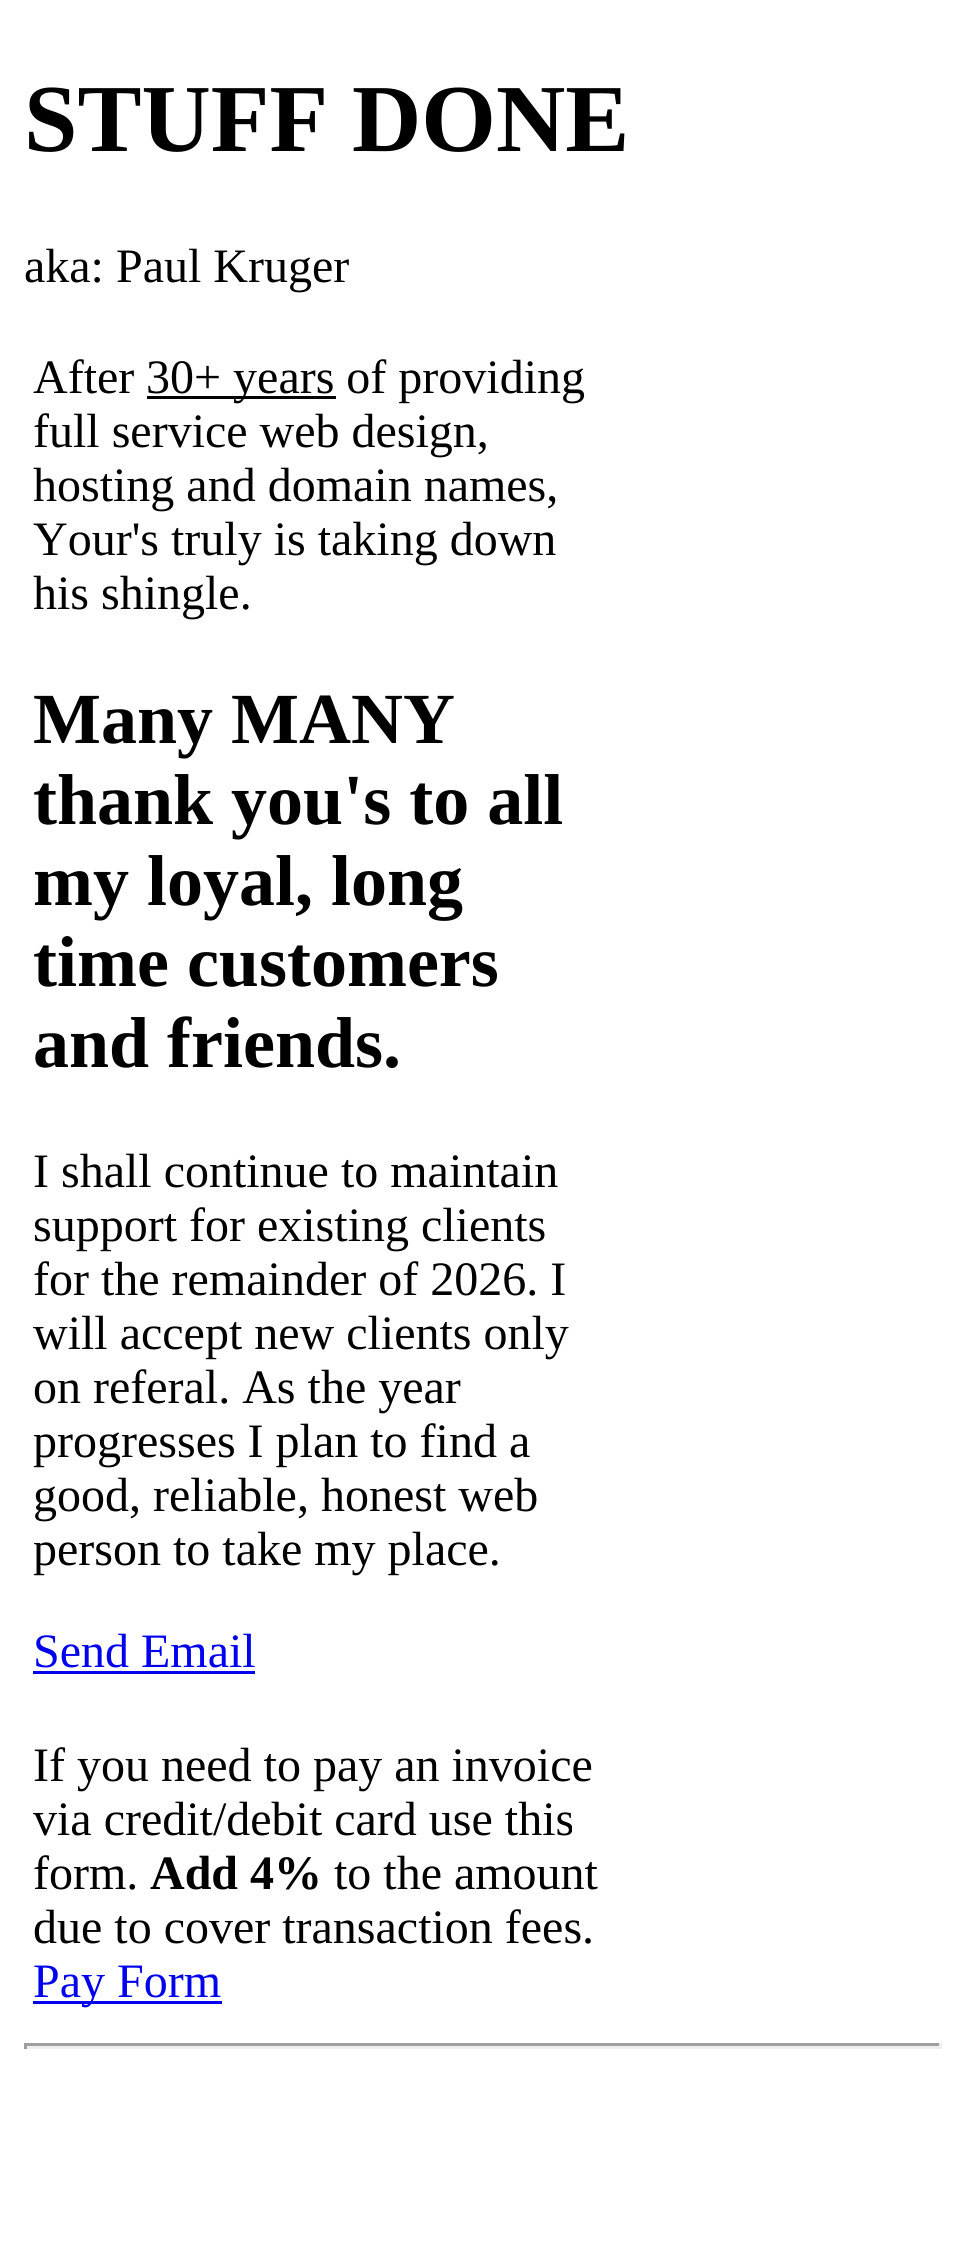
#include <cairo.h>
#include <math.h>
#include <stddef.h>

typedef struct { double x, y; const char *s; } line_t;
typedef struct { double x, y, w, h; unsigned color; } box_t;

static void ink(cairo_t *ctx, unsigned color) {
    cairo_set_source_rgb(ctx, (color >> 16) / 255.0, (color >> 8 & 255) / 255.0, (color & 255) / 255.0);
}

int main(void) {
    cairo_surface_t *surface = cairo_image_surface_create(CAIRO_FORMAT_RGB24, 966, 2253);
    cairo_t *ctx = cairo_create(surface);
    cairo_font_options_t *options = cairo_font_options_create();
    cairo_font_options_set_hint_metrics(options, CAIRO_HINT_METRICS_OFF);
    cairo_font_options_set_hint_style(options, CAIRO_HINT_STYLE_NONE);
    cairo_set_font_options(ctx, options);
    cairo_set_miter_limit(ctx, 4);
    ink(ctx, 0xFFFFFF);
    cairo_paint(ctx);
    cairo_select_font_face(ctx, "Liberation Serif", CAIRO_FONT_SLANT_NORMAL, CAIRO_FONT_WEIGHT_BOLD);
    cairo_set_font_size(ctx, 96);
    ink(ctx, 0x000000);
    cairo_move_to(ctx, 24, 151);
    cairo_show_text(ctx, "STUFF DONE");
    cairo_select_font_face(ctx, "Liberation Serif", CAIRO_FONT_SLANT_NORMAL, CAIRO_FONT_WEIGHT_NORMAL);
    cairo_set_font_size(ctx, 48);
    cairo_move_to(ctx, 24, 282);
    cairo_show_text(ctx, "aka: Paul Kruger");
    cairo_move_to(ctx, 33, 393);
    cairo_show_text(ctx, "After");
    cairo_rectangle(ctx, 147, 396, 189, 3);
    cairo_fill(ctx);
    {
        static const line_t items[] = {
            {146, 393, "30+ years of providing"},
            {33, 447, "full service web design,"},
            {33, 501, "hosting and domain names,"},
            {33, 555, "Your's truly is taking down"},
            {33, 609, "his shingle."},
        };
        for (size_t i = 0; i < sizeof items / sizeof *items; i++) {
            cairo_move_to(ctx, items[i].x, items[i].y);
            cairo_show_text(ctx, items[i].s);
        }
    }
    cairo_select_font_face(ctx, "Liberation Serif", CAIRO_FONT_SLANT_NORMAL, CAIRO_FONT_WEIGHT_BOLD);
    cairo_set_font_size(ctx, 72);
    {
        static const line_t items[] = {
            {33, 743, "Many MANY"},
            {33, 824, "thank you's to all"},
            {33, 905, "my loyal, long"},
            {33, 986, "time customers"},
            {33, 1067, "and friends."},
        };
        for (size_t i = 0; i < sizeof items / sizeof *items; i++) {
            cairo_move_to(ctx, items[i].x, items[i].y);
            cairo_show_text(ctx, items[i].s);
        }
    }
    cairo_select_font_face(ctx, "Liberation Serif", CAIRO_FONT_SLANT_NORMAL, CAIRO_FONT_WEIGHT_NORMAL);
    cairo_set_font_size(ctx, 48);
    {
        static const line_t items[] = {
            {33, 1187, "I shall continue to maintain"},
            {33, 1241, "support for existing clients"},
            {33, 1295, "for the remainder of 2026. I"},
            {33, 1349, "will accept new clients only"},
            {33, 1403, "on referal. As the year"},
            {33, 1457, "progresses I plan to find a"},
            {33, 1511, "good, reliable, honest web"},
            {33, 1565, "person to take my place."},
        };
        for (size_t i = 0; i < sizeof items / sizeof *items; i++) {
            cairo_move_to(ctx, items[i].x, items[i].y);
            cairo_show_text(ctx, items[i].s);
        }
    }
    ink(ctx, 0x0000EE);
    cairo_move_to(ctx, 33, 1667);
    cairo_show_text(ctx, "Send Email");
    cairo_rectangle(ctx, 33, 1671, 222, 3);
    cairo_fill(ctx);
    ink(ctx, 0x000000);
    {
        static const line_t items[] = {
            {33, 1781, "If you need to pay an invoice"},
            {33, 1835, "via credit/debit card use this"},
            {33, 1889, "form."},
        };
        for (size_t i = 0; i < sizeof items / sizeof *items; i++) {
            cairo_move_to(ctx, items[i].x, items[i].y);
            cairo_show_text(ctx, items[i].s);
        }
    }
    cairo_select_font_face(ctx, "Liberation Serif", CAIRO_FONT_SLANT_NORMAL, CAIRO_FONT_WEIGHT_BOLD);
    cairo_move_to(ctx, 150, 1889);
    cairo_show_text(ctx, "Add 4%");
    cairo_select_font_face(ctx, "Liberation Serif", CAIRO_FONT_SLANT_NORMAL, CAIRO_FONT_WEIGHT_NORMAL);
    cairo_move_to(ctx, 334, 1889);
    cairo_show_text(ctx, "to the amount");
    cairo_move_to(ctx, 33, 1943);
    cairo_show_text(ctx, "due to cover transaction fees.");
    ink(ctx, 0x0000EE);
    cairo_rectangle(ctx, 33, 2001, 189, 3);
    cairo_fill(ctx);
    cairo_move_to(ctx, 33, 1997);
    cairo_show_text(ctx, "Pay Form");
    {
        static const box_t items[] = {
            {24, 2043, 918, 3, 0x9F9F9F},
            {939, 2043, 3, 6, 0xEEEEEE},
            {24, 2046, 918, 3, 0xEEEEEE},
            {24, 2043, 3, 6, 0x9F9F9F},
        };
        for (size_t i = 0; i < sizeof items / sizeof *items; i++) {
            ink(ctx, items[i].color);
            cairo_rectangle(ctx, items[i].x, items[i].y, items[i].w, items[i].h);
            cairo_fill(ctx);
        }
    }
    cairo_surface_write_to_png(surface, "image.png");
    cairo_font_options_destroy(options);
    cairo_destroy(ctx);
    cairo_surface_destroy(surface);
    return 0;
}
